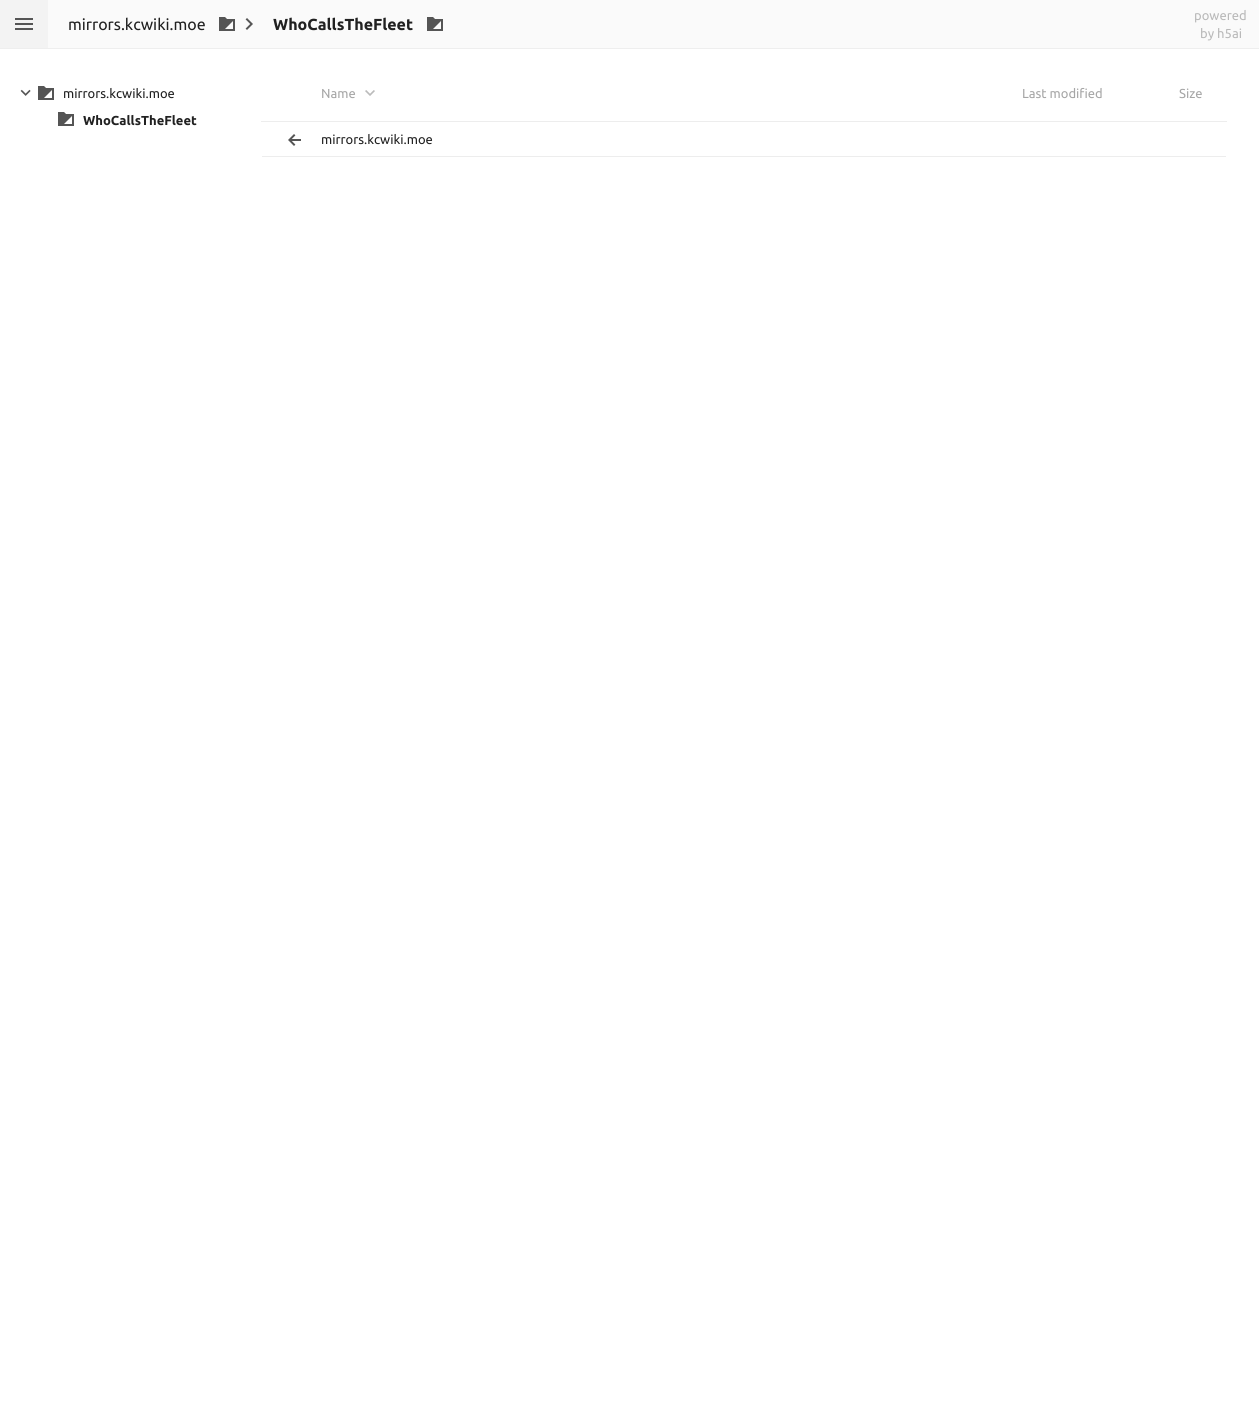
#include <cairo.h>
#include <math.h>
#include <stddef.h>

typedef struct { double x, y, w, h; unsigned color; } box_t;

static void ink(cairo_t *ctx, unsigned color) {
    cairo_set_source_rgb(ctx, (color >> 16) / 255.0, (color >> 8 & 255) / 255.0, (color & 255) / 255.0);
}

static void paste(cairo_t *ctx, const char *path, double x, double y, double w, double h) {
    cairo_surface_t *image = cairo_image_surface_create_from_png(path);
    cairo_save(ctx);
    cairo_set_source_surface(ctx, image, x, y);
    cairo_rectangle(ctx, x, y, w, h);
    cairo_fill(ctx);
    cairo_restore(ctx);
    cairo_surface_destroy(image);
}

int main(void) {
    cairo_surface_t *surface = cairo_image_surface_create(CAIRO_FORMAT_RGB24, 1259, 1426);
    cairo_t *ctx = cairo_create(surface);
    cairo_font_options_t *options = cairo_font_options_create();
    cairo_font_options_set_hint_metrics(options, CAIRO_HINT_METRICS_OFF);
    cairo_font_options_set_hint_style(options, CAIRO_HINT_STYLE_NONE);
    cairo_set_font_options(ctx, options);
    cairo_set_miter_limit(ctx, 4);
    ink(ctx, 0xFFFFFF);
    cairo_paint(ctx);
    {
        static const box_t items[] = {
            {48, 0, 1211, 48, 0xFAFAFA},
            {0, 48, 1259, 1, 0xEEEEEE},
            {0, 0, 48, 48, 0xF3F3F3},
        };
        for (size_t i = 0; i < sizeof items / sizeof *items; i++) {
            ink(ctx, items[i].color);
            cairo_rectangle(ctx, items[i].x, items[i].y, items[i].w, items[i].h);
            cairo_fill(ctx);
        }
    }
    paste(ctx, "media/1.png", 15, 18, 18, 12);
    cairo_select_font_face(ctx, "Ubuntu", CAIRO_FONT_SLANT_NORMAL, CAIRO_FONT_WEIGHT_NORMAL);
    cairo_set_font_size(ctx, 16);
    ink(ctx, 0x212121);
    cairo_move_to(ctx, 68, 30);
    cairo_show_text(ctx, "mirrors.kcwiki.moe");
    paste(ctx, "media/2.png", 219, 17, 16, 14);
    paste(ctx, "media/3.png", 245, 18, 8, 12);
    cairo_select_font_face(ctx, "Ubuntu", CAIRO_FONT_SLANT_NORMAL, CAIRO_FONT_WEIGHT_BOLD);
    cairo_move_to(ctx, 273, 30);
    cairo_show_text(ctx, "WhoCallsTheFleet");
    paste(ctx, "media/2.png", 427, 17, 16, 14);
    cairo_select_font_face(ctx, "Ubuntu", CAIRO_FONT_SLANT_NORMAL, CAIRO_FONT_WEIGHT_NORMAL);
    cairo_set_font_size(ctx, 13);
    ink(ctx, 0xB9B9B9);
    cairo_move_to(ctx, 1194, 20);
    cairo_show_text(ctx, "powered");
    cairo_move_to(ctx, 1200, 38);
    cairo_show_text(ctx, "by h5ai");
    paste(ctx, "media/4.png", 20, 89, 11, 7);
    paste(ctx, "media/5.png", 38, 86, 16, 14);
    ink(ctx, 0x212121);
    cairo_move_to(ctx, 63, 98);
    cairo_show_text(ctx, "mirrors.kcwiki.moe");
    paste(ctx, "media/5.png", 58, 112, 16, 14);
    cairo_select_font_face(ctx, "Ubuntu", CAIRO_FONT_SLANT_NORMAL, CAIRO_FONT_WEIGHT_BOLD);
    cairo_move_to(ctx, 83, 125);
    cairo_show_text(ctx, "WhoCallsTheFleet");
    ink(ctx, 0xEDEDED);
    cairo_rectangle(ctx, 261, 121, 966, 1);
    cairo_fill(ctx);
    cairo_select_font_face(ctx, "Ubuntu", CAIRO_FONT_SLANT_NORMAL, CAIRO_FONT_WEIGHT_NORMAL);
    ink(ctx, 0xA6A6A6);
    cairo_move_to(ctx, 321, 98);
    cairo_show_text(ctx, "Name");
    paste(ctx, "media/6.png", 365, 90, 10, 6);
    cairo_move_to(ctx, 1022, 98);
    cairo_show_text(ctx, "Last modified");
    cairo_move_to(ctx, 1179, 98);
    cairo_show_text(ctx, "Size");
    ink(ctx, 0xEDEDED);
    cairo_rectangle(ctx, 262, 156, 964, 1);
    cairo_fill(ctx);
    paste(ctx, "media/7.png", 288, 134, 13, 12);
    ink(ctx, 0x212121);
    cairo_move_to(ctx, 321, 144);
    cairo_show_text(ctx, "mirrors.kcwiki.moe");
    cairo_surface_write_to_png(surface, "image.png");
    cairo_font_options_destroy(options);
    cairo_destroy(ctx);
    cairo_surface_destroy(surface);
    return 0;
}
